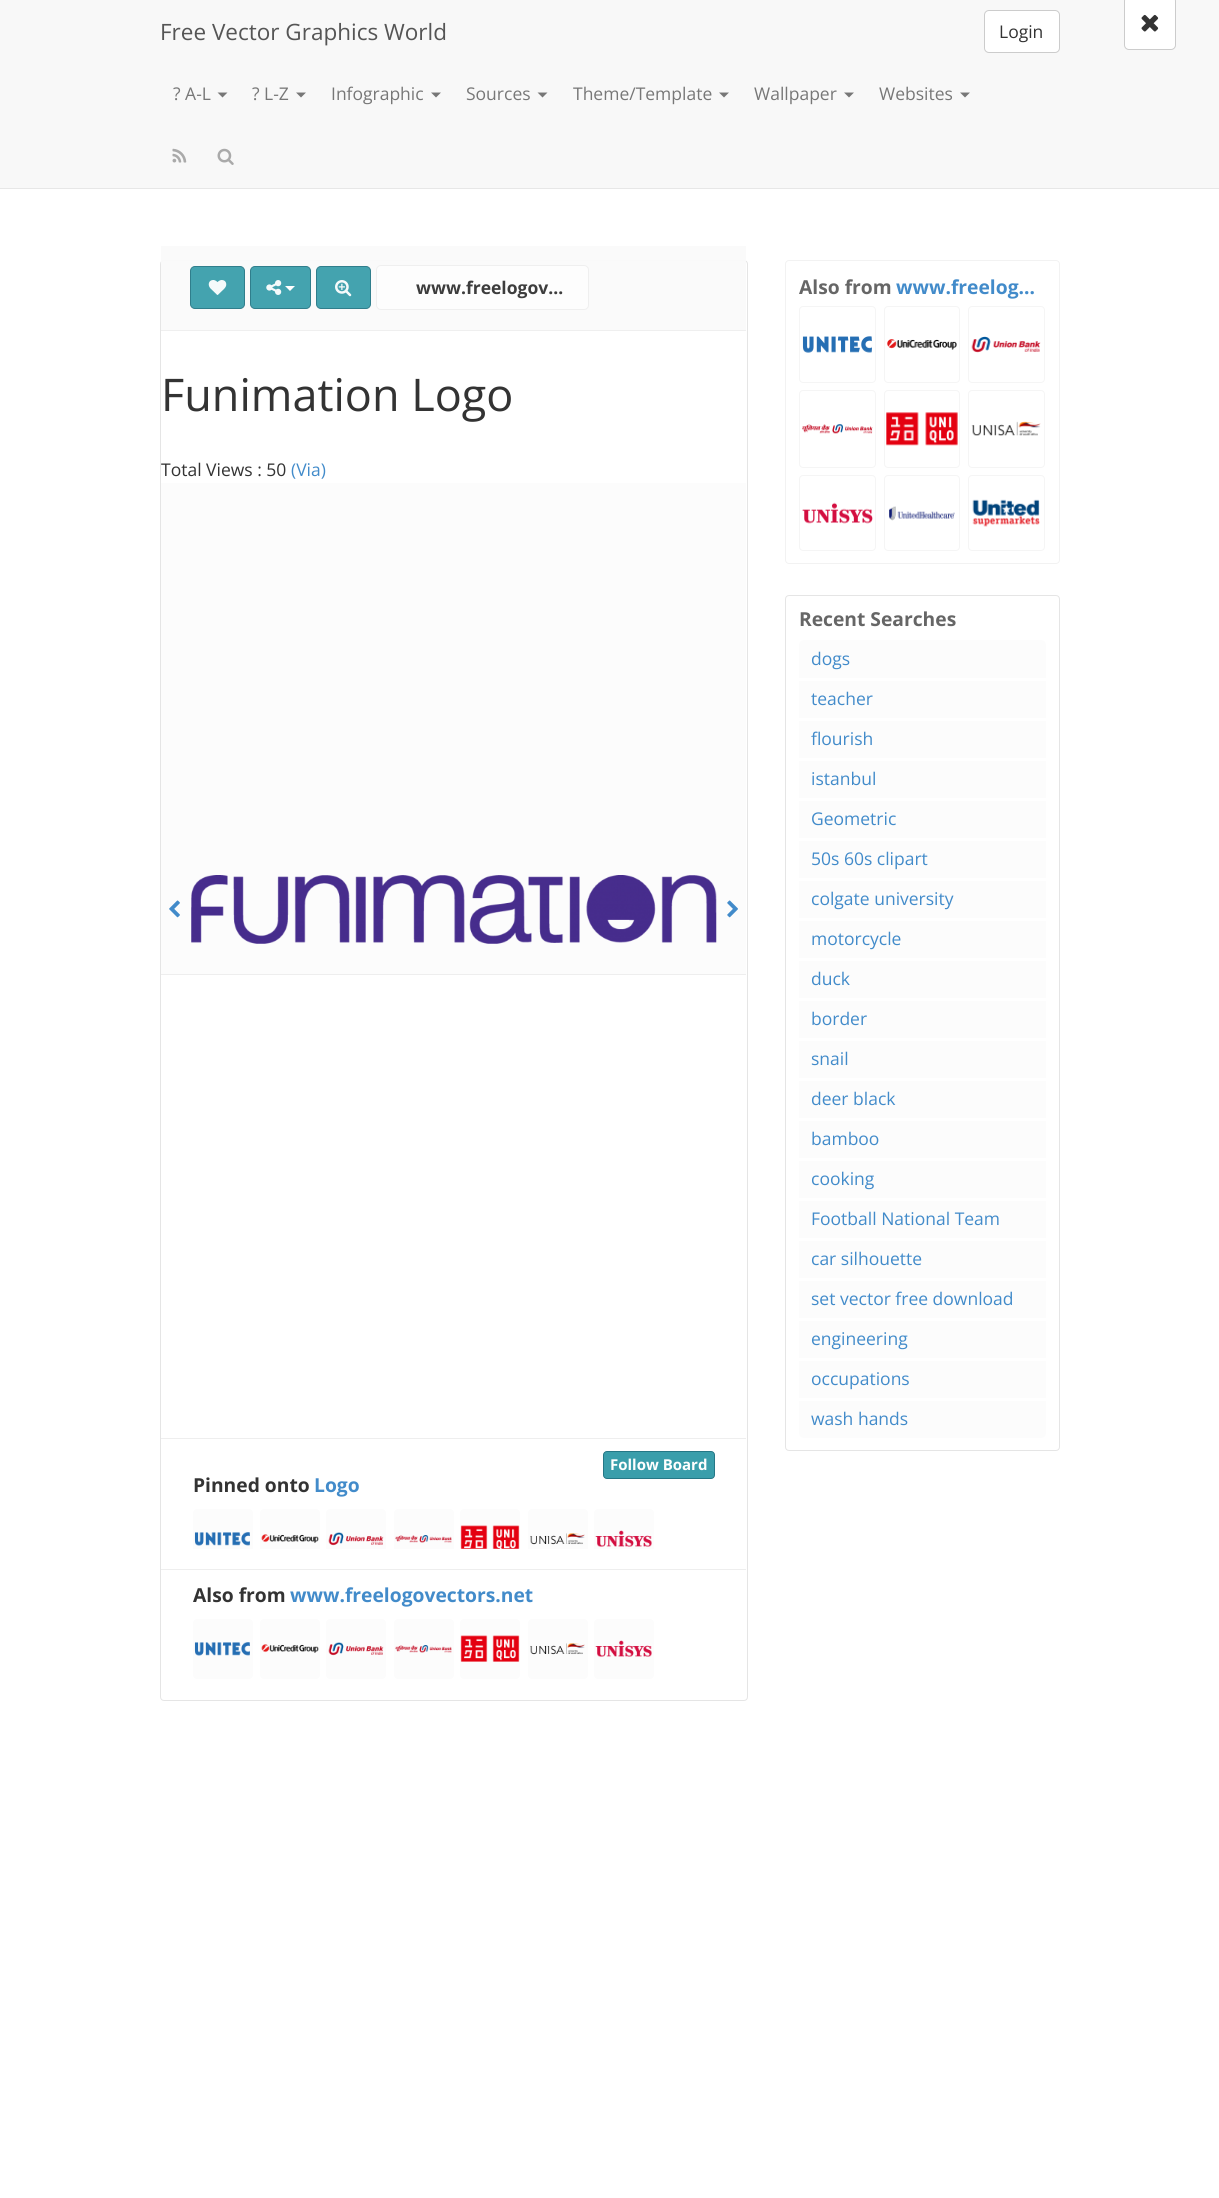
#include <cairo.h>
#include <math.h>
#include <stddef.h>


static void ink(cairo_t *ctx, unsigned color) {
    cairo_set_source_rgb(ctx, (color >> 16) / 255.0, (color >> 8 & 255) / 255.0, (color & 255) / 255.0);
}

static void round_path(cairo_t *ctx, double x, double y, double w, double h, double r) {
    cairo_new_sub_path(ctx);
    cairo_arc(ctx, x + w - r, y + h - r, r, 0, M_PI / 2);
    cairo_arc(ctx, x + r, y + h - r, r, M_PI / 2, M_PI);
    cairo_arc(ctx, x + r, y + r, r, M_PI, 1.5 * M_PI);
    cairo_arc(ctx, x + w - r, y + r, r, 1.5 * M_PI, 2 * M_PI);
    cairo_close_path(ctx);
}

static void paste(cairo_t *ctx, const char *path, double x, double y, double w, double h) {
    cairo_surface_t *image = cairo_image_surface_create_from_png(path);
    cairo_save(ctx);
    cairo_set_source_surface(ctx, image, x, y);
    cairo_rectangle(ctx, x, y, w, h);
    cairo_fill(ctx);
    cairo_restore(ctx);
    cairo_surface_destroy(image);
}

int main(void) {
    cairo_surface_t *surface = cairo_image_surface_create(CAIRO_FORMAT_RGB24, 1219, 2198);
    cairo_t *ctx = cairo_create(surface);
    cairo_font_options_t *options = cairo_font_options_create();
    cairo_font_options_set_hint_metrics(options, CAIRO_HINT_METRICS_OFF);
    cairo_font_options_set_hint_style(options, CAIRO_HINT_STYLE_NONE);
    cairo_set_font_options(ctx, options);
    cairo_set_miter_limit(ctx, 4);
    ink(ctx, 0xFFFFFF);
    cairo_paint(ctx);
    ink(ctx, 0xF8F8F8);
    cairo_rectangle(ctx, 0, 0, 1219, 188);
    cairo_fill(ctx);
    ink(ctx, 0xE7E7E7);
    cairo_rectangle(ctx, 0, 188, 1219, 1);
    cairo_fill(ctx);
    cairo_select_font_face(ctx, "Open Sans", CAIRO_FONT_SLANT_NORMAL, CAIRO_FONT_WEIGHT_NORMAL);
    cairo_set_font_size(ctx, 22.5);
    ink(ctx, 0x555555);
    cairo_move_to(ctx, 160, 40);
    cairo_show_text(ctx, "Free Vector Graphics World");
    ink(ctx, 0xFFFFFF);
    round_path(ctx, 984.5, 10.5, 75, 42, 4.5);
    cairo_fill_preserve(ctx);
    ink(ctx, 0xCCCCCC);
    cairo_set_line_width(ctx, 1);
    cairo_stroke(ctx);
    cairo_set_font_size(ctx, 17.5);
    ink(ctx, 0x333333);
    cairo_move_to(ctx, 999, 38);
    cairo_show_text(ctx, "Login");
    ink(ctx, 0x777777);
    cairo_move_to(ctx, 173, 100);
    cairo_show_text(ctx, "? A-L");
    cairo_new_path(ctx);
    cairo_move_to(ctx, 217.5, 92.5);
    cairo_line_to(ctx, 227.5, 92.5);
    cairo_line_to(ctx, 222.5, 97.5);
    cairo_close_path(ctx);
    cairo_fill(ctx);
    cairo_move_to(ctx, 252, 100);
    cairo_show_text(ctx, "? L-Z");
    cairo_new_path(ctx);
    cairo_move_to(ctx, 296, 92.5);
    cairo_line_to(ctx, 306, 92.5);
    cairo_line_to(ctx, 301, 97.5);
    cairo_close_path(ctx);
    cairo_fill(ctx);
    cairo_move_to(ctx, 331, 100);
    cairo_show_text(ctx, "Infographic");
    cairo_new_path(ctx);
    cairo_move_to(ctx, 431, 92.5);
    cairo_line_to(ctx, 441, 92.5);
    cairo_line_to(ctx, 436, 97.5);
    cairo_close_path(ctx);
    cairo_fill(ctx);
    cairo_move_to(ctx, 466, 100);
    cairo_show_text(ctx, "Sources");
    cairo_new_path(ctx);
    cairo_move_to(ctx, 537.5, 92.5);
    cairo_line_to(ctx, 547.5, 92.5);
    cairo_line_to(ctx, 542.5, 97.5);
    cairo_close_path(ctx);
    cairo_fill(ctx);
    cairo_move_to(ctx, 573, 100);
    cairo_show_text(ctx, "Theme/Template");
    cairo_new_path(ctx);
    cairo_move_to(ctx, 719, 92.5);
    cairo_line_to(ctx, 729, 92.5);
    cairo_line_to(ctx, 724, 97.5);
    cairo_close_path(ctx);
    cairo_fill(ctx);
    cairo_move_to(ctx, 754, 100);
    cairo_show_text(ctx, "Wallpaper");
    cairo_new_path(ctx);
    cairo_move_to(ctx, 844, 92.5);
    cairo_line_to(ctx, 854, 92.5);
    cairo_line_to(ctx, 849, 97.5);
    cairo_close_path(ctx);
    cairo_fill(ctx);
    cairo_move_to(ctx, 879, 100);
    cairo_show_text(ctx, "Websites");
    cairo_new_path(ctx);
    cairo_move_to(ctx, 960, 92.5);
    cairo_line_to(ctx, 970, 92.5);
    cairo_line_to(ctx, 965, 97.5);
    cairo_close_path(ctx);
    cairo_fill(ctx);
    paste(ctx, "media/1.png", 172, 148, 15, 15);
    paste(ctx, "media/2.png", 217, 148, 17, 17);
    round_path(ctx, 160.5, 260.5, 587, 1440, 3.5);
    ink(ctx, 0xE5E5E5);
    cairo_stroke(ctx);
    ink(ctx, 0xFFFFFF);
    round_path(ctx, 1124.5, -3.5, 51, 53, 4.5);
    cairo_fill_preserve(ctx);
    ink(ctx, 0xCCCCCC);
    cairo_stroke(ctx);
    paste(ctx, "media/3.png", 1141, 14, 18, 18);
    cairo_set_source_rgba(ctx, 0.98, 0.98, 0.98, 0.95);
    cairo_rectangle(ctx, 161, 246, 585, 84);
    cairo_fill(ctx);
    ink(ctx, 0xEFEFEF);
    cairo_rectangle(ctx, 161, 330, 585, 1);
    cairo_fill(ctx);
    ink(ctx, 0x44A3AF);
    round_path(ctx, 190.5, 266.5, 54, 42, 4.5);
    cairo_fill_preserve(ctx);
    ink(ctx, 0x307E8C);
    cairo_stroke(ctx);
    paste(ctx, "media/4.png", 208, 280, 19, 15);
    ink(ctx, 0x44A3AF);
    round_path(ctx, 250.5, 266.5, 60, 42, 4.5);
    cairo_fill_preserve(ctx);
    ink(ctx, 0x307E8C);
    cairo_stroke(ctx);
    paste(ctx, "media/5.png", 266, 280, 16, 15);
    ink(ctx, 0xFFFFFF);
    cairo_new_path(ctx);
    cairo_move_to(ctx, 285, 286);
    cairo_line_to(ctx, 295, 286);
    cairo_line_to(ctx, 290, 291);
    cairo_close_path(ctx);
    cairo_fill(ctx);
    ink(ctx, 0x44A3AF);
    round_path(ctx, 316.5, 266.5, 54, 42, 4.5);
    cairo_fill_preserve(ctx);
    ink(ctx, 0x307E8C);
    cairo_stroke(ctx);
    paste(ctx, "media/6.png", 335, 280, 17, 17);
    ink(ctx, 0xFDFDFD);
    round_path(ctx, 376.5, 265.5, 212, 44, 4.5);
    cairo_fill_preserve(ctx);
    ink(ctx, 0xEFEFEF);
    cairo_stroke(ctx);
    cairo_select_font_face(ctx, "Open Sans", CAIRO_FONT_SLANT_NORMAL, CAIRO_FONT_WEIGHT_BOLD);
    ink(ctx, 0x3D3D3D);
    cairo_move_to(ctx, 416, 294);
    cairo_show_text(ctx, "www.freelogov…");
    cairo_select_font_face(ctx, "Open Sans", CAIRO_FONT_SLANT_NORMAL, CAIRO_FONT_WEIGHT_NORMAL);
    cairo_set_font_size(ctx, 45);
    ink(ctx, 0x333333);
    cairo_move_to(ctx, 161, 411);
    cairo_show_text(ctx, "Funimation Logo");
    cairo_set_font_size(ctx, 17.5);
    cairo_move_to(ctx, 161, 476);
    cairo_show_text(ctx, "Total Views : 50");
    ink(ctx, 0x428BCA);
    cairo_move_to(ctx, 291, 476);
    cairo_show_text(ctx, "(Via)");
    ink(ctx, 0xFCFCFC);
    cairo_rectangle(ctx, 161, 483, 585, 491);
    cairo_fill(ctx);
    ink(ctx, 0xEEEEEE);
    cairo_rectangle(ctx, 161, 974, 585, 1);
    cairo_fill(ctx);
    paste(ctx, "media/7.png", 169, 900, 11, 18);
    paste(ctx, "media/8.png", 191, 875, 526, 69);
    paste(ctx, "media/9.png", 727, 900, 11, 18);
    cairo_rectangle(ctx, 161, 1438, 585, 1);
    cairo_fill(ctx);
    ink(ctx, 0x3A9EAB);
    round_path(ctx, 603.5, 1451.5, 111, 27, 3.5);
    cairo_fill_preserve(ctx);
    ink(ctx, 0x257786);
    cairo_stroke(ctx);
    cairo_select_font_face(ctx, "Open Sans", CAIRO_FONT_SLANT_NORMAL, CAIRO_FONT_WEIGHT_BOLD);
    cairo_set_font_size(ctx, 15);
    ink(ctx, 0xFFFFFF);
    cairo_move_to(ctx, 610, 1470);
    cairo_show_text(ctx, "Follow Board");
    cairo_set_font_size(ctx, 19.25);
    ink(ctx, 0x333333);
    cairo_move_to(ctx, 193, 1492);
    cairo_show_text(ctx, "Pinned onto");
    ink(ctx, 0x428BCA);
    cairo_move_to(ctx, 314, 1492);
    cairo_show_text(ctx, "Logo");
    ink(ctx, 0xFCFCFC);
    cairo_new_path(ctx);
    cairo_move_to(ctx, 197, 1509);
    cairo_line_to(ctx, 249, 1509);
    cairo_curve_to(ctx, 251, 1509, 253, 1511, 253, 1513);
    cairo_line_to(ctx, 253, 1549);
    cairo_line_to(ctx, 193, 1549);
    cairo_line_to(ctx, 193, 1513);
    cairo_curve_to(ctx, 193, 1511, 195, 1509, 197, 1509);
    cairo_close_path(ctx);
    cairo_fill(ctx);
    paste(ctx, "media/10.png", 194, 1532, 56, 14);
    cairo_new_path(ctx);
    cairo_move_to(ctx, 264, 1509);
    cairo_line_to(ctx, 316, 1509);
    cairo_curve_to(ctx, 318, 1509, 320, 1511, 320, 1513);
    cairo_line_to(ctx, 320, 1549);
    cairo_line_to(ctx, 260, 1549);
    cairo_line_to(ctx, 260, 1513);
    cairo_curve_to(ctx, 260, 1511, 262, 1509, 264, 1509);
    cairo_close_path(ctx);
    cairo_fill(ctx);
    paste(ctx, "media/11.png", 261, 1534, 58, 9);
    cairo_new_path(ctx);
    cairo_move_to(ctx, 330, 1509);
    cairo_line_to(ctx, 382, 1509);
    cairo_curve_to(ctx, 384, 1509, 386, 1511, 386, 1513);
    cairo_line_to(ctx, 386, 1549);
    cairo_line_to(ctx, 326, 1549);
    cairo_line_to(ctx, 326, 1513);
    cairo_curve_to(ctx, 326, 1511, 328, 1509, 330, 1509);
    cairo_close_path(ctx);
    cairo_fill(ctx);
    paste(ctx, "media/12.png", 328, 1532, 56, 14);
    cairo_new_path(ctx);
    cairo_move_to(ctx, 398, 1509);
    cairo_line_to(ctx, 450, 1509);
    cairo_curve_to(ctx, 452, 1509, 454, 1511, 454, 1513);
    cairo_line_to(ctx, 454, 1549);
    cairo_line_to(ctx, 394, 1549);
    cairo_line_to(ctx, 394, 1513);
    cairo_curve_to(ctx, 394, 1511, 396, 1509, 398, 1509);
    cairo_close_path(ctx);
    cairo_fill(ctx);
    paste(ctx, "media/13.png", 395, 1535, 57, 8);
    cairo_new_path(ctx);
    cairo_move_to(ctx, 464, 1509);
    cairo_line_to(ctx, 516, 1509);
    cairo_curve_to(ctx, 518, 1509, 520, 1511, 520, 1513);
    cairo_line_to(ctx, 520, 1549);
    cairo_line_to(ctx, 460, 1549);
    cairo_line_to(ctx, 460, 1513);
    cairo_curve_to(ctx, 460, 1511, 462, 1509, 464, 1509);
    cairo_close_path(ctx);
    cairo_fill(ctx);
    paste(ctx, "media/14.png", 460, 1525, 60, 24);
    cairo_new_path(ctx);
    cairo_move_to(ctx, 532, 1509);
    cairo_line_to(ctx, 584, 1509);
    cairo_curve_to(ctx, 586, 1509, 588, 1511, 588, 1513);
    cairo_line_to(ctx, 588, 1549);
    cairo_line_to(ctx, 528, 1549);
    cairo_line_to(ctx, 528, 1513);
    cairo_curve_to(ctx, 528, 1511, 530, 1509, 532, 1509);
    cairo_close_path(ctx);
    cairo_fill(ctx);
    paste(ctx, "media/15.png", 530, 1533, 55, 12);
    cairo_new_path(ctx);
    cairo_move_to(ctx, 598, 1509);
    cairo_line_to(ctx, 650, 1509);
    cairo_curve_to(ctx, 652, 1509, 654, 1511, 654, 1513);
    cairo_line_to(ctx, 654, 1549);
    cairo_line_to(ctx, 594, 1549);
    cairo_line_to(ctx, 594, 1513);
    cairo_curve_to(ctx, 594, 1511, 596, 1509, 598, 1509);
    cairo_close_path(ctx);
    cairo_fill(ctx);
    paste(ctx, "media/16.png", 595, 1530, 57, 17);
    ink(ctx, 0xEEEEEE);
    cairo_rectangle(ctx, 161, 1569, 585, 1);
    cairo_fill(ctx);
    ink(ctx, 0x333333);
    cairo_move_to(ctx, 193, 1602);
    cairo_show_text(ctx, "Also from");
    ink(ctx, 0x428BCA);
    cairo_move_to(ctx, 290, 1602);
    cairo_show_text(ctx, "www.freelogovectors.net");
    ink(ctx, 0xFCFCFC);
    round_path(ctx, 193, 1619, 60, 60, 4);
    cairo_fill(ctx);
    paste(ctx, "media/10.png", 194, 1642, 56, 14);
    round_path(ctx, 260, 1619, 60, 60, 4);
    cairo_fill(ctx);
    paste(ctx, "media/11.png", 261, 1644, 58, 9);
    round_path(ctx, 326, 1619, 60, 60, 4);
    cairo_fill(ctx);
    paste(ctx, "media/12.png", 328, 1642, 56, 14);
    round_path(ctx, 394, 1619, 60, 60, 4);
    cairo_fill(ctx);
    paste(ctx, "media/13.png", 395, 1645, 57, 8);
    round_path(ctx, 460, 1619, 60, 60, 4);
    cairo_fill(ctx);
    paste(ctx, "media/17.png", 460, 1635, 60, 27);
    round_path(ctx, 528, 1619, 60, 60, 4);
    cairo_fill(ctx);
    paste(ctx, "media/15.png", 530, 1643, 55, 12);
    round_path(ctx, 594, 1619, 60, 60, 4);
    cairo_fill(ctx);
    paste(ctx, "media/16.png", 595, 1640, 57, 17);
    round_path(ctx, 785.5, 260.5, 274, 303, 3.5);
    ink(ctx, 0xF2F2F2);
    cairo_stroke(ctx);
    ink(ctx, 0x666666);
    cairo_move_to(ctx, 799, 294);
    cairo_show_text(ctx, "Also from");
    ink(ctx, 0x428BCA);
    cairo_move_to(ctx, 896, 294);
    cairo_show_text(ctx, "www.freelog…");
    round_path(ctx, 799.5, 306.5, 76, 76, 3.5);
    ink(ctx, 0xF5F5F5);
    cairo_stroke(ctx);
    paste(ctx, "media/18.png", 802, 336, 70, 17);
    round_path(ctx, 884.5, 306.5, 75, 76, 3.5);
    cairo_stroke(ctx);
    paste(ctx, "media/19.png", 887, 339, 70, 11);
    round_path(ctx, 968.5, 306.5, 76, 76, 3.5);
    cairo_stroke(ctx);
    paste(ctx, "media/20.png", 971, 336, 70, 17);
    round_path(ctx, 799.5, 390.5, 76, 77, 3.5);
    cairo_stroke(ctx);
    paste(ctx, "media/21.png", 802, 424, 71, 10);
    round_path(ctx, 884.5, 390.5, 75, 77, 3.5);
    cairo_stroke(ctx);
    paste(ctx, "media/22.png", 886, 412, 72, 34);
    round_path(ctx, 968.5, 390.5, 76, 77, 3.5);
    cairo_stroke(ctx);
    paste(ctx, "media/23.png", 971, 421, 70, 15);
    round_path(ctx, 799.5, 475.5, 76, 75, 3.5);
    cairo_stroke(ctx);
    paste(ctx, "media/24.png", 802, 502, 71, 22);
    round_path(ctx, 884.5, 475.5, 75, 75, 3.5);
    cairo_stroke(ctx);
    paste(ctx, "media/25.png", 889, 506, 66, 15);
    round_path(ctx, 968.5, 475.5, 76, 75, 3.5);
    cairo_stroke(ctx);
    paste(ctx, "media/26.png", 972, 499, 68, 28);
    round_path(ctx, 785.5, 595.5, 274, 855, 3.5);
    ink(ctx, 0xE5E5E5);
    cairo_stroke(ctx);
    ink(ctx, 0x666666);
    cairo_move_to(ctx, 799, 626);
    cairo_show_text(ctx, "Recent Searches");
    ink(ctx, 0xFCFCFC);
    round_path(ctx, 799, 640, 247, 798, 5);
    cairo_fill(ctx);
    ink(ctx, 0xFFFFFF);
    cairo_rectangle(ctx, 799, 678, 247, 3);
    cairo_fill(ctx);
    cairo_select_font_face(ctx, "Open Sans", CAIRO_FONT_SLANT_NORMAL, CAIRO_FONT_WEIGHT_NORMAL);
    cairo_set_font_size(ctx, 17.5);
    ink(ctx, 0x428BCA);
    cairo_move_to(ctx, 811, 665);
    cairo_show_text(ctx, "dogs");
    ink(ctx, 0xFFFFFF);
    cairo_rectangle(ctx, 799, 718, 247, 3);
    cairo_fill(ctx);
    ink(ctx, 0x428BCA);
    cairo_move_to(ctx, 811, 705);
    cairo_show_text(ctx, "teacher");
    ink(ctx, 0xFFFFFF);
    cairo_rectangle(ctx, 799, 758, 247, 3);
    cairo_fill(ctx);
    ink(ctx, 0x428BCA);
    cairo_move_to(ctx, 811, 745);
    cairo_show_text(ctx, "flourish");
    ink(ctx, 0xFFFFFF);
    cairo_rectangle(ctx, 799, 798, 247, 3);
    cairo_fill(ctx);
    ink(ctx, 0x428BCA);
    cairo_move_to(ctx, 811, 785);
    cairo_show_text(ctx, "istanbul");
    ink(ctx, 0xFFFFFF);
    cairo_rectangle(ctx, 799, 838, 247, 3);
    cairo_fill(ctx);
    ink(ctx, 0x428BCA);
    cairo_move_to(ctx, 811, 825);
    cairo_show_text(ctx, "Geometric");
    ink(ctx, 0xFFFFFF);
    cairo_rectangle(ctx, 799, 878, 247, 3);
    cairo_fill(ctx);
    ink(ctx, 0x428BCA);
    cairo_move_to(ctx, 811, 865);
    cairo_show_text(ctx, "50s 60s clipart");
    ink(ctx, 0xFFFFFF);
    cairo_rectangle(ctx, 799, 918, 247, 3);
    cairo_fill(ctx);
    ink(ctx, 0x428BCA);
    cairo_move_to(ctx, 811, 905);
    cairo_show_text(ctx, "colgate university");
    ink(ctx, 0xFFFFFF);
    cairo_rectangle(ctx, 799, 958, 247, 3);
    cairo_fill(ctx);
    ink(ctx, 0x428BCA);
    cairo_move_to(ctx, 811, 945);
    cairo_show_text(ctx, "motorcycle");
    ink(ctx, 0xFFFFFF);
    cairo_rectangle(ctx, 799, 998, 247, 3);
    cairo_fill(ctx);
    ink(ctx, 0x428BCA);
    cairo_move_to(ctx, 811, 985);
    cairo_show_text(ctx, "duck");
    ink(ctx, 0xFFFFFF);
    cairo_rectangle(ctx, 799, 1038, 247, 3);
    cairo_fill(ctx);
    ink(ctx, 0x428BCA);
    cairo_move_to(ctx, 811, 1025);
    cairo_show_text(ctx, "border");
    ink(ctx, 0xFFFFFF);
    cairo_rectangle(ctx, 799, 1078, 247, 3);
    cairo_fill(ctx);
    ink(ctx, 0x428BCA);
    cairo_move_to(ctx, 811, 1065);
    cairo_show_text(ctx, "snail");
    ink(ctx, 0xFFFFFF);
    cairo_rectangle(ctx, 799, 1118, 247, 3);
    cairo_fill(ctx);
    ink(ctx, 0x428BCA);
    cairo_move_to(ctx, 811, 1105);
    cairo_show_text(ctx, "deer black");
    ink(ctx, 0xFFFFFF);
    cairo_rectangle(ctx, 799, 1158, 247, 3);
    cairo_fill(ctx);
    ink(ctx, 0x428BCA);
    cairo_move_to(ctx, 811, 1145);
    cairo_show_text(ctx, "bamboo");
    ink(ctx, 0xFFFFFF);
    cairo_rectangle(ctx, 799, 1198, 247, 3);
    cairo_fill(ctx);
    ink(ctx, 0x428BCA);
    cairo_move_to(ctx, 811, 1185);
    cairo_show_text(ctx, "cooking");
    ink(ctx, 0xFFFFFF);
    cairo_rectangle(ctx, 799, 1238, 247, 3);
    cairo_fill(ctx);
    ink(ctx, 0x428BCA);
    cairo_move_to(ctx, 811, 1225);
    cairo_show_text(ctx, "Football National Team");
    ink(ctx, 0xFFFFFF);
    cairo_rectangle(ctx, 799, 1278, 247, 3);
    cairo_fill(ctx);
    ink(ctx, 0x428BCA);
    cairo_move_to(ctx, 811, 1265);
    cairo_show_text(ctx, "car silhouette");
    ink(ctx, 0xFFFFFF);
    cairo_rectangle(ctx, 799, 1318, 247, 3);
    cairo_fill(ctx);
    ink(ctx, 0x428BCA);
    cairo_move_to(ctx, 811, 1305);
    cairo_show_text(ctx, "set vector free download");
    ink(ctx, 0xFFFFFF);
    cairo_rectangle(ctx, 799, 1358, 247, 3);
    cairo_fill(ctx);
    ink(ctx, 0x428BCA);
    cairo_move_to(ctx, 811, 1345);
    cairo_show_text(ctx, "engineering");
    ink(ctx, 0xFFFFFF);
    cairo_rectangle(ctx, 799, 1398, 247, 3);
    cairo_fill(ctx);
    ink(ctx, 0x428BCA);
    cairo_move_to(ctx, 811, 1385);
    cairo_show_text(ctx, "occupations");
    cairo_move_to(ctx, 811, 1425);
    cairo_show_text(ctx, "wash hands");
    cairo_surface_write_to_png(surface, "image.png");
    cairo_font_options_destroy(options);
    cairo_destroy(ctx);
    cairo_surface_destroy(surface);
    return 0;
}
